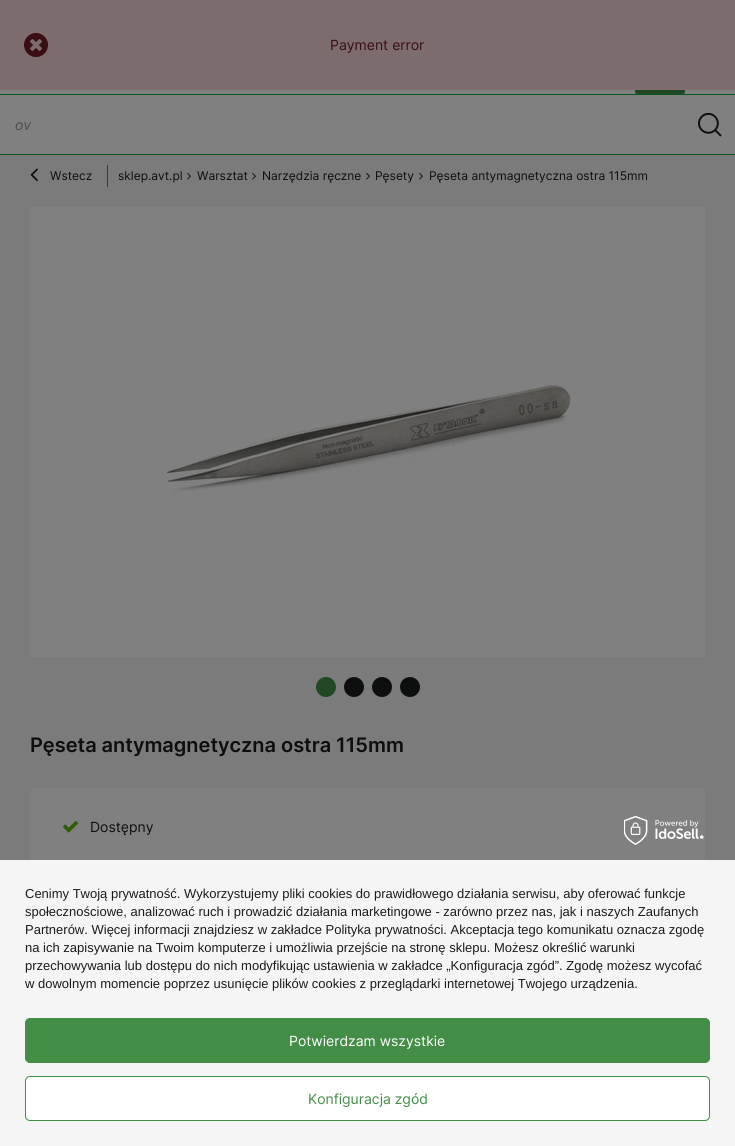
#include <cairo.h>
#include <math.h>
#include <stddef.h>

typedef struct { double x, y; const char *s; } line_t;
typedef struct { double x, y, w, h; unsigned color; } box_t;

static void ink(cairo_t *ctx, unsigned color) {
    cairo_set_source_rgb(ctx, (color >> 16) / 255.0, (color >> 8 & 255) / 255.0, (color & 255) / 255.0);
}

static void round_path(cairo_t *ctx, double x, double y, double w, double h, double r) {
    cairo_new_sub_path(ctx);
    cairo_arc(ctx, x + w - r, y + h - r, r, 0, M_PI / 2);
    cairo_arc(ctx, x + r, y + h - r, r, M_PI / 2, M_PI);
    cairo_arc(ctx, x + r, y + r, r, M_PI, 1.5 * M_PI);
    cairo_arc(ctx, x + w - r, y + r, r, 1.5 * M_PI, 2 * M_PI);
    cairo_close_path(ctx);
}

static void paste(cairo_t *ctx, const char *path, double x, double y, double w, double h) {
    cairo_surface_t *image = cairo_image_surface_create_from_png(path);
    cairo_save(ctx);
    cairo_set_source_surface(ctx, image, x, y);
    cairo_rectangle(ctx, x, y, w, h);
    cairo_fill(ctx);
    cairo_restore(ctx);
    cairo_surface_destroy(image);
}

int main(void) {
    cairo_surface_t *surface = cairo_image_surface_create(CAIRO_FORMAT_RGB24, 735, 1146);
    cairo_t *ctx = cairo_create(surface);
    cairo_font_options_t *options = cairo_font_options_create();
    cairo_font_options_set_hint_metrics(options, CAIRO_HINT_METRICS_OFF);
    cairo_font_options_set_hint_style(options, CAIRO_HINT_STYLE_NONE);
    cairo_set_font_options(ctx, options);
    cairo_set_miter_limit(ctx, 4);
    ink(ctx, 0x7B7B7B);
    cairo_paint(ctx);
    ink(ctx, 0x808080);
    cairo_rectangle(ctx, 0, 90, 735, 4);
    cairo_fill(ctx);
    ink(ctx, 0x224724);
    round_path(ctx, 635.5, 34.5, 49, 61, 4.5);
    cairo_fill_preserve(ctx);
    cairo_set_line_width(ctx, 1);
    cairo_stroke(ctx);
    ink(ctx, 0x7C6C6D);
    cairo_rectangle(ctx, 0, 0, 735, 90);
    cairo_fill(ctx);
    paste(ctx, "media/1.png", 24, 33, 24, 24);
    cairo_select_font_face(ctx, "Inter", CAIRO_FONT_SLANT_NORMAL, CAIRO_FONT_WEIGHT_NORMAL);
    cairo_set_font_size(ctx, 14);
    ink(ctx, 0x390E12);
    cairo_move_to(ctx, 330, 50);
    cairo_show_text(ctx, "Payment error");
    {
        static const box_t items[] = {
            {0, 95, 735, 59, 0x808080},
            {0, 94, 735, 1, 0x0B571D},
            {0, 154, 735, 1, 0x0B571D},
        };
        for (size_t i = 0; i < sizeof items / sizeof *items; i++) {
            ink(ctx, items[i].color);
            cairo_rectangle(ctx, items[i].x, items[i].y, items[i].w, items[i].h);
            cairo_fill(ctx);
        }
    }
    cairo_select_font_face(ctx, "Inter", CAIRO_FONT_SLANT_ITALIC, CAIRO_FONT_WEIGHT_NORMAL);
    ink(ctx, 0x4C4C4C);
    cairo_move_to(ctx, 15, 130);
    cairo_show_text(ctx, "ov");
    paste(ctx, "media/2.png", 698, 112, 24, 25);
    paste(ctx, "media/3.png", 30, 168, 8, 14);
    cairo_select_font_face(ctx, "Inter", CAIRO_FONT_SLANT_NORMAL, CAIRO_FONT_WEIGHT_NORMAL);
    cairo_set_font_size(ctx, 12);
    ink(ctx, 0x0D0E0E);
    cairo_move_to(ctx, 50, 180);
    cairo_show_text(ctx, "Wstecz");
    ink(ctx, 0x0B571D);
    cairo_rectangle(ctx, 107, 165, 1, 22);
    cairo_fill(ctx);
    ink(ctx, 0x0D0E0E);
    cairo_move_to(ctx, 118, 180);
    cairo_show_text(ctx, "sklep.avt.pl");
    paste(ctx, "media/4.png", 187, 172, 4, 8);
    cairo_move_to(ctx, 197, 180);
    cairo_show_text(ctx, "Warsztat");
    paste(ctx, "media/4.png", 252, 172, 4, 8);
    cairo_move_to(ctx, 262, 180);
    cairo_show_text(ctx, "Narzędzia ręczne");
    paste(ctx, "media/4.png", 366, 172, 4, 8);
    cairo_move_to(ctx, 375, 180);
    cairo_show_text(ctx, "Pęsety");
    paste(ctx, "media/4.png", 419, 172, 4, 8);
    cairo_move_to(ctx, 429, 180);
    cairo_show_text(ctx, "Pęseta antymagnetyczna ostra 115mm");
    ink(ctx, 0x808080);
    cairo_rectangle(ctx, 30, 207, 675, 450);
    cairo_fill(ctx);
    paste(ctx, "media/5.png", 167, 385, 404, 115);
    ink(ctx, 0x224724);
    cairo_arc(ctx, 326, 687, 10, 0, 2 * M_PI);
    cairo_fill(ctx);
    ink(ctx, 0x0D0E0E);
    cairo_arc(ctx, 354, 687, 10, 0, 2 * M_PI);
    cairo_fill(ctx);
    cairo_arc(ctx, 382, 687, 10, 0, 2 * M_PI);
    cairo_fill(ctx);
    cairo_arc(ctx, 410, 687, 10, 0, 2 * M_PI);
    cairo_fill(ctx);
    cairo_select_font_face(ctx, "Inter SemiBold", CAIRO_FONT_SLANT_NORMAL, CAIRO_FONT_WEIGHT_NORMAL);
    cairo_set_font_size(ctx, 20);
    cairo_move_to(ctx, 30, 752);
    cairo_show_text(ctx, "Pęseta antymagnetyczna ostra 115mm");
    ink(ctx, 0x808080);
    round_path(ctx, 30, 788, 675, 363, 5);
    cairo_fill(ctx);
    paste(ctx, "media/6.png", 63, 821, 15, 12);
    cairo_select_font_face(ctx, "Inter", CAIRO_FONT_SLANT_NORMAL, CAIRO_FONT_WEIGHT_NORMAL);
    cairo_set_font_size(ctx, 14);
    ink(ctx, 0x0D0E0E);
    cairo_move_to(ctx, 90, 832);
    cairo_show_text(ctx, "Dostępny");
    ink(ctx, 0xF5F5F5);
    cairo_rectangle(ctx, 0, 860, 735, 286);
    cairo_fill(ctx);
    paste(ctx, "media/7.png", 624, 816, 80, 29);
    cairo_select_font_face(ctx, "Liberation Sans", CAIRO_FONT_SLANT_NORMAL, CAIRO_FONT_WEIGHT_NORMAL);
    cairo_set_font_size(ctx, 13);
    ink(ctx, 0x1A1B1C);
    {
        static const line_t items[] = {
            {25, 898, "Cenimy Twoją prywatność. Wykorzystujemy pliki cookies do prawidłowego działania serwisu, aby oferować funkcje"},
            {25, 916, "społecznościowe, analizować ruch i prowadzić działania marketingowe - zarówno przez nas, jak i naszych Zaufanych"},
            {25, 934, "Partnerów. Więcej informacji znajdziesz w zakładce Polityka prywatności. Akceptacja tego komunikatu oznacza zgodę"},
            {25, 952, "na ich zapisywanie na Twoim komputerze i umożliwia przejście na stronę sklepu. Możesz określić warunki"},
            {25, 970, "przechowywania lub dostępu do nich modyfikując ustawienia w zakładce „Konfiguracja zgód”. Zgodę możesz wycofać"},
            {25, 988, "w dowolnym momencie poprzez usunięcie plików cookies z przeglądarki internetowej Twojego urządzenia."},
        };
        for (size_t i = 0; i < sizeof items / sizeof *items; i++) {
            cairo_move_to(ctx, items[i].x, items[i].y);
            cairo_show_text(ctx, items[i].s);
        }
    }
    ink(ctx, 0x448D47);
    round_path(ctx, 25.5, 1018.5, 684, 44, 4.5);
    cairo_fill_preserve(ctx);
    cairo_stroke(ctx);
    cairo_select_font_face(ctx, "Inter", CAIRO_FONT_SLANT_NORMAL, CAIRO_FONT_WEIGHT_NORMAL);
    cairo_set_font_size(ctx, 14);
    ink(ctx, 0xFFFFFF);
    cairo_move_to(ctx, 289, 1046);
    cairo_show_text(ctx, "Potwierdzam wszystkie");
    round_path(ctx, 25.5, 1076.5, 684, 44, 4.5);
    cairo_fill_preserve(ctx);
    ink(ctx, 0x448D47);
    cairo_stroke(ctx);
    cairo_move_to(ctx, 308, 1104);
    cairo_show_text(ctx, "Konfiguracja zgód");
    cairo_surface_write_to_png(surface, "image.png");
    cairo_font_options_destroy(options);
    cairo_destroy(ctx);
    cairo_surface_destroy(surface);
    return 0;
}
